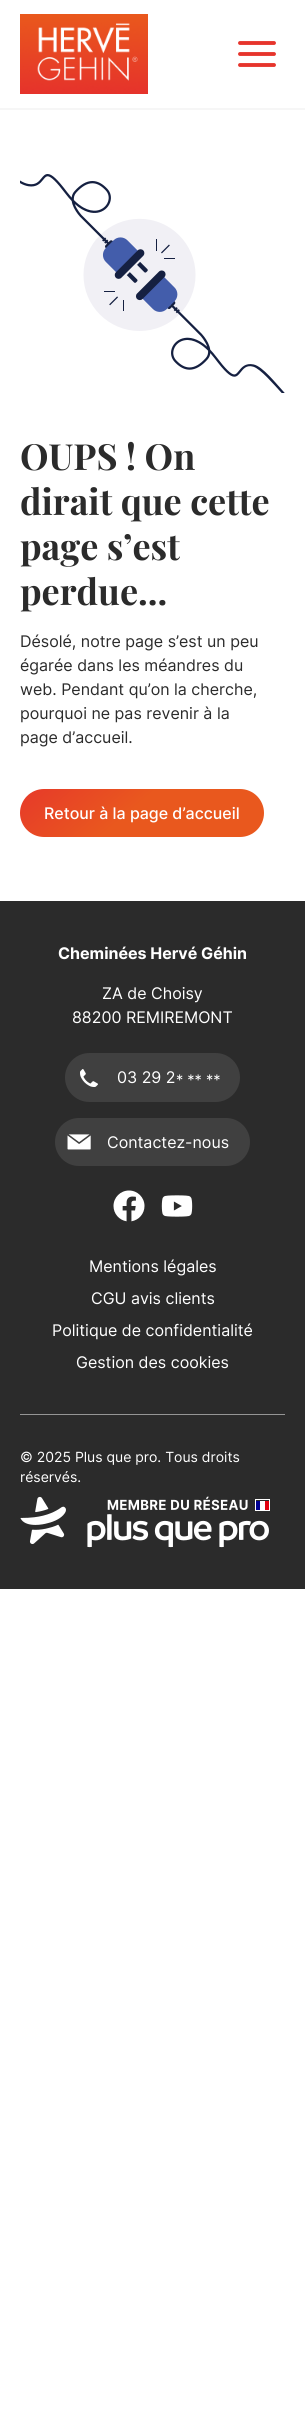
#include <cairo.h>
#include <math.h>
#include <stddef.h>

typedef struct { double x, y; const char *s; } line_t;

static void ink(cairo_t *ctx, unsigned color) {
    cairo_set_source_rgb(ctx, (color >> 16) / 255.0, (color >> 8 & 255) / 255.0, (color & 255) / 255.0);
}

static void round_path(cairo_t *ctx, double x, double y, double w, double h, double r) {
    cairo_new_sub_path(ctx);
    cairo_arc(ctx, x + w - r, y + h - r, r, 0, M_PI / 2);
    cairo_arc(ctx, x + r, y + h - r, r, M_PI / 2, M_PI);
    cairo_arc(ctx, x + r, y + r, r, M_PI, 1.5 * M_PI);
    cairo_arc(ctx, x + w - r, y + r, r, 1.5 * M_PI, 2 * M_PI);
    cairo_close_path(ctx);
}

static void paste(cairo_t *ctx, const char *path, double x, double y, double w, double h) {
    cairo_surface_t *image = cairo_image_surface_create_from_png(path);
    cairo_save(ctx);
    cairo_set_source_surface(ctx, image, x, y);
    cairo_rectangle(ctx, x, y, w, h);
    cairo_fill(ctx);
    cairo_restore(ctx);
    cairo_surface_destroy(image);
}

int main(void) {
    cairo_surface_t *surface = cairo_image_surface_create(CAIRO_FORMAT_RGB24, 305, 2423);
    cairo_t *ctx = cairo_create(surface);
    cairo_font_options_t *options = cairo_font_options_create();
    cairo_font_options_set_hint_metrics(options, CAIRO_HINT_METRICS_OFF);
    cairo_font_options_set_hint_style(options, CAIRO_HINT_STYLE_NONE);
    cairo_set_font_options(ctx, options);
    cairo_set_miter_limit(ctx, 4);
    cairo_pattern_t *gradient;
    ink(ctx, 0xFFFFFF);
    cairo_paint(ctx);
    ink(ctx, 0xF6F6F6);
    cairo_rectangle(ctx, 0, 108, 305, 2);
    cairo_fill(ctx);
    paste(ctx, "media/1.png", 20, 14, 128, 80);
    cairo_new_path(ctx);
    cairo_move_to(ctx, 240, 43);
    cairo_line_to(ctx, 274, 43);
    cairo_move_to(ctx, 240, 54);
    cairo_line_to(ctx, 274, 54);
    cairo_move_to(ctx, 240, 65);
    cairo_line_to(ctx, 274, 65);
    ink(ctx, 0xE6342C);
    cairo_set_line_width(ctx, 3.9);
    cairo_set_line_cap(ctx, CAIRO_LINE_CAP_ROUND);
    cairo_stroke(ctx);
    paste(ctx, "media/2.png", 20, 174, 265, 219);
    cairo_select_font_face(ctx, "Playfair Display", CAIRO_FONT_SLANT_NORMAL, CAIRO_FONT_WEIGHT_BOLD);
    cairo_set_font_size(ctx, 36);
    ink(ctx, 0x2B2B2B);
    {
        static const line_t items[] = {
            {20, 470, "OUPS ! On"},
            {20, 515, "dirait que cette"},
            {20, 560, "page s’est"},
            {20, 605, "perdue..."},
        };
        for (size_t i = 0; i < sizeof items / sizeof *items; i++) {
            cairo_move_to(ctx, items[i].x, items[i].y);
            cairo_show_text(ctx, items[i].s);
        }
    }
    cairo_select_font_face(ctx, "Inter", CAIRO_FONT_SLANT_NORMAL, CAIRO_FONT_WEIGHT_NORMAL);
    cairo_set_font_size(ctx, 16);
    {
        static const line_t items[] = {
            {20, 647, "Désolé, notre page s’est un peu"},
            {20, 671, "égarée dans les méandres du"},
            {20, 695, "web. Pendant qu’on la cherche,"},
            {20, 719, "pourquoi ne pas revenir à la"},
            {20, 743, "page d’accueil."},
        };
        for (size_t i = 0; i < sizeof items / sizeof *items; i++) {
            cairo_move_to(ctx, items[i].x, items[i].y);
            cairo_show_text(ctx, items[i].s);
        }
    }
    gradient = cairo_pattern_create_linear(133, 947, -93, 679);
    cairo_pattern_add_color_stop_rgba(gradient, 0, 0.914, 0.345, 0.118, 1);
    cairo_pattern_add_color_stop_rgba(gradient, 0.3, 0.914, 0.345, 0.118, 1);
    cairo_pattern_add_color_stop_rgba(gradient, 0.6, 0.902, 0.204, 0.173, 1);
    cairo_pattern_add_color_stop_rgba(gradient, 1, 0.902, 0.204, 0.173, 1);
    cairo_set_source(ctx, gradient);
    cairo_pattern_destroy(gradient);
    round_path(ctx, 20, 789, 244, 48, 24);
    cairo_fill(ctx);
    cairo_select_font_face(ctx, "Inter Medium", CAIRO_FONT_SLANT_NORMAL, CAIRO_FONT_WEIGHT_NORMAL);
    ink(ctx, 0xFFFFFF);
    cairo_move_to(ctx, 44, 819);
    cairo_show_text(ctx, "Retour à la page d’accueil");
    ink(ctx, 0x2B2B2B);
    cairo_rectangle(ctx, 0, 901, 305, 688);
    cairo_fill(ctx);
    cairo_select_font_face(ctx, "Inter", CAIRO_FONT_SLANT_NORMAL, CAIRO_FONT_WEIGHT_BOLD);
    ink(ctx, 0xFFFFFF);
    cairo_move_to(ctx, 58, 959);
    cairo_show_text(ctx, "Cheminées Hervé Géhin");
    cairo_select_font_face(ctx, "Inter", CAIRO_FONT_SLANT_NORMAL, CAIRO_FONT_WEIGHT_NORMAL);
    cairo_move_to(ctx, 102, 999);
    cairo_show_text(ctx, "ZA de Choisy");
    cairo_move_to(ctx, 72, 1023);
    cairo_show_text(ctx, "88200 REMIREMONT");
    ink(ctx, 0x404040);
    round_path(ctx, 65, 1053, 175, 49, 24.5);
    cairo_fill(ctx);
    paste(ctx, "media/3.png", 80, 1069, 18, 18);
    ink(ctx, 0xFFFFFF);
    cairo_move_to(ctx, 117, 1083);
    cairo_show_text(ctx, "03 29 2");
    cairo_set_font_size(ctx, 14.5);
    cairo_move_to(ctx, 176, 1085);
    cairo_show_text(ctx, "* ** **");
    ink(ctx, 0x404040);
    round_path(ctx, 55, 1118, 195, 48, 24);
    cairo_fill(ctx);
    paste(ctx, "media/4.png", 67, 1134, 24, 16);
    cairo_set_font_size(ctx, 16);
    ink(ctx, 0xFFFFFF);
    cairo_move_to(ctx, 107, 1148);
    cairo_show_text(ctx, "Contactez-nous");
    paste(ctx, "media/5.png", 113, 1190, 32, 32);
    paste(ctx, "media/6.png", 161, 1195, 32, 22);
    {
        static const line_t items[] = {
            {89, 1272, "Mentions légales"},
            {91, 1304, "CGU avis clients"},
            {52, 1336, "Politique de confidentialité"},
            {76, 1368, "Gestion des cookies"},
        };
        for (size_t i = 0; i < sizeof items / sizeof *items; i++) {
            cairo_move_to(ctx, items[i].x, items[i].y);
            cairo_show_text(ctx, items[i].s);
        }
    }
    ink(ctx, 0x959595);
    cairo_rectangle(ctx, 20, 1414, 265, 1);
    cairo_fill(ctx);
    cairo_set_font_size(ctx, 14);
    ink(ctx, 0xFFFFFF);
    cairo_move_to(ctx, 20, 1462);
    cairo_show_text(ctx, "© 2025 Plus que pro. Tous droits");
    cairo_move_to(ctx, 20, 1482);
    cairo_show_text(ctx, "réservés.");
    paste(ctx, "media/7.png", 20, 1496, 250, 52);
    cairo_surface_write_to_png(surface, "image.png");
    cairo_font_options_destroy(options);
    cairo_destroy(ctx);
    cairo_surface_destroy(surface);
    return 0;
}
